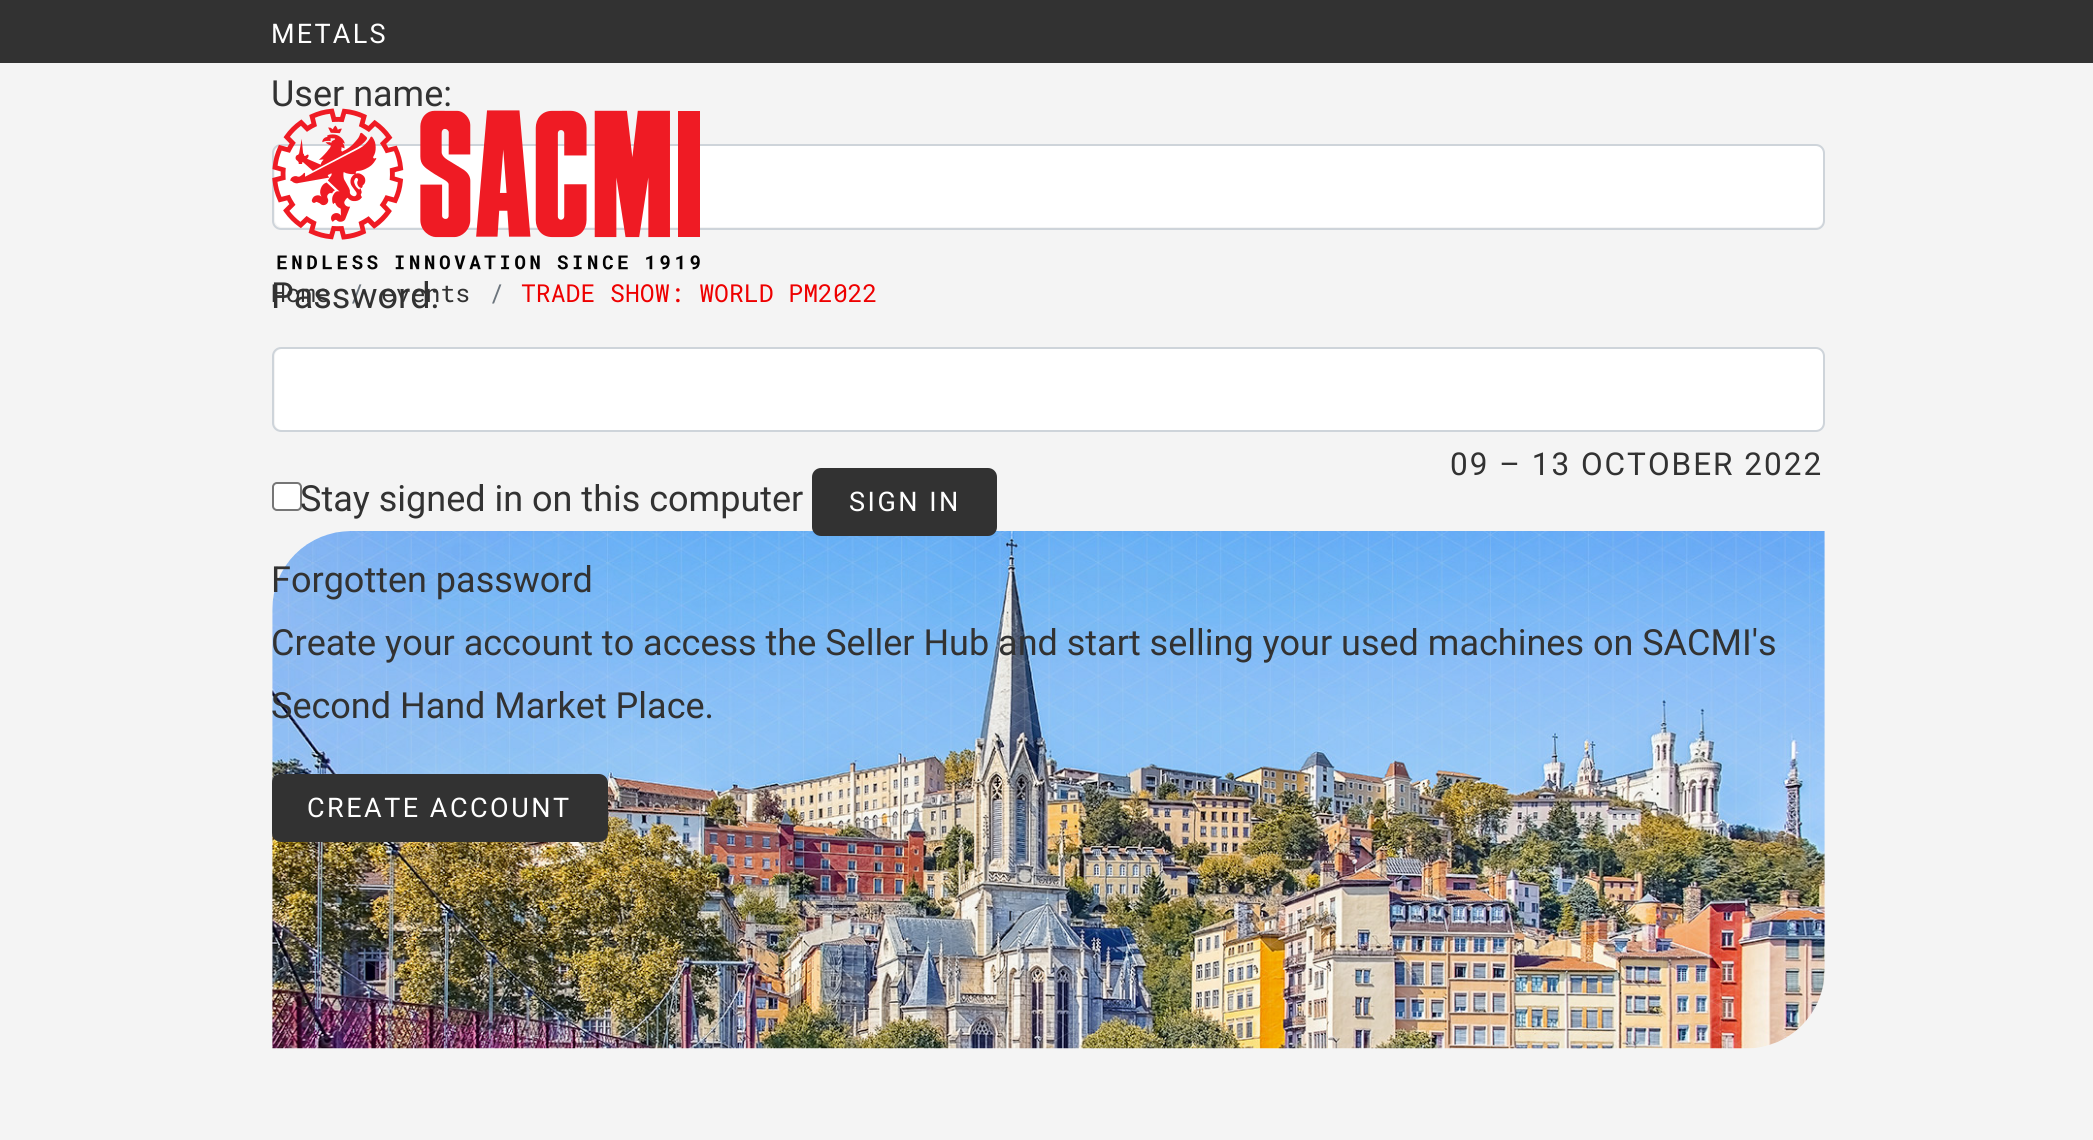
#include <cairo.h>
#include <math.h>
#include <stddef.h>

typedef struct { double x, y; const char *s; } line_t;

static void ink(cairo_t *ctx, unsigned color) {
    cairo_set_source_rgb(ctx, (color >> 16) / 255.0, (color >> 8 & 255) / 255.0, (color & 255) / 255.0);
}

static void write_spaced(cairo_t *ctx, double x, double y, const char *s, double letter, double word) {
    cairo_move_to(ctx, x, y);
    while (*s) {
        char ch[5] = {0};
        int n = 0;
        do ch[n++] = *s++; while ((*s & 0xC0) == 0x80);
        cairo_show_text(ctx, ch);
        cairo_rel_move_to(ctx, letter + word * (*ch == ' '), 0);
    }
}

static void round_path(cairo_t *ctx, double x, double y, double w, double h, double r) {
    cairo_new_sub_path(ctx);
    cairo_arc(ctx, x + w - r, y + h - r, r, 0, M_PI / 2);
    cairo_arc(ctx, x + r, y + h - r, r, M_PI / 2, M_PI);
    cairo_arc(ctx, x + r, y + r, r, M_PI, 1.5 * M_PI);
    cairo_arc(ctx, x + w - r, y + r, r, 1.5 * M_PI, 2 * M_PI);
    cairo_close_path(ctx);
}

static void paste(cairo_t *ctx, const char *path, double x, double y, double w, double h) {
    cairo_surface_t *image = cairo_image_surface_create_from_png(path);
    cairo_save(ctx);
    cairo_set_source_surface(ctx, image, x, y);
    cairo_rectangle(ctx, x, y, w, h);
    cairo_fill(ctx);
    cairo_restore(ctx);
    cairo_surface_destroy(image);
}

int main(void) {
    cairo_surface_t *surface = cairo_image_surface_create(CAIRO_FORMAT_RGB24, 2093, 1140);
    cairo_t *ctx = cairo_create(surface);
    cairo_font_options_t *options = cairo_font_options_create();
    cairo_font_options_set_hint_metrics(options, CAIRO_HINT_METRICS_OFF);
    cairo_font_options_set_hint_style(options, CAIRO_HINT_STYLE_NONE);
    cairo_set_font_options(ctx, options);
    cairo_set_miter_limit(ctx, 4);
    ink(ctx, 0xF4F4F4);
    cairo_paint(ctx);
    ink(ctx, 0x323232);
    cairo_rectangle(ctx, 0, 0, 2093, 63);
    cairo_fill(ctx);
    cairo_select_font_face(ctx, "Roboto", CAIRO_FONT_SLANT_NORMAL, CAIRO_FONT_WEIGHT_NORMAL);
    cairo_set_font_size(ctx, 27);
    ink(ctx, 0xFFFFFF);
    write_spaced(ctx, 271, 43, "METALS", 2.25, 0);
    cairo_set_font_size(ctx, 36);
    ink(ctx, 0x323232);
    cairo_move_to(ctx, 271, 106);
    cairo_show_text(ctx, "User name:");
    ink(ctx, 0xFFFFFF);
    round_path(ctx, 275, 146, 1548, 81, 7);
    cairo_fill(ctx);
    round_path(ctx, 273, 145, 1551, 84, 8);
    ink(ctx, 0xCED4DA);
    cairo_stroke(ctx);
    cairo_select_font_face(ctx, "Roboto Mono", CAIRO_FONT_SLANT_NORMAL, CAIRO_FONT_WEIGHT_NORMAL);
    cairo_set_font_size(ctx, 24.75);
    ink(ctx, 0x323232);
    cairo_move_to(ctx, 271, 302);
    cairo_show_text(ctx, "Home");
    ink(ctx, 0x6C757D);
    cairo_move_to(ctx, 349, 302);
    cairo_show_text(ctx, "/");
    ink(ctx, 0x323232);
    cairo_move_to(ctx, 381, 302);
    cairo_show_text(ctx, "events");
    cairo_select_font_face(ctx, "Roboto", CAIRO_FONT_SLANT_NORMAL, CAIRO_FONT_WEIGHT_NORMAL);
    cairo_set_font_size(ctx, 36);
    cairo_move_to(ctx, 271, 308);
    cairo_show_text(ctx, "Password:");
    ink(ctx, 0xFFFFFF);
    round_path(ctx, 275, 349, 1548, 81, 7);
    cairo_fill(ctx);
    round_path(ctx, 273, 348, 1551, 83, 8);
    ink(ctx, 0xCED4DA);
    cairo_stroke(ctx);
    ink(ctx, 0xFFFFFF);
    round_path(ctx, 273, 483, 28, 27, 4);
    cairo_fill_preserve(ctx);
    ink(ctx, 0x767676);
    cairo_stroke(ctx);
    ink(ctx, 0x323232);
    cairo_move_to(ctx, 300, 511);
    cairo_show_text(ctx, "Stay signed in on this computer");
    paste(ctx, "media/2.png", 272, 531, 1553, 518);
    round_path(ctx, 812, 468, 185, 68, 9);
    cairo_fill(ctx);
    cairo_set_font_size(ctx, 27);
    ink(ctx, 0xFFFFFF);
    write_spaced(ctx, 849, 511, "SIGN IN", 2.5, 0);
    cairo_set_font_size(ctx, 36);
    ink(ctx, 0x323232);
    {
        static const line_t items[] = {
            {271, 592, "Forgotten password"},
            {271, 655, "Create your account to access the Seller Hub and start selling your used machines on SACMI's"},
            {271, 718, "Second Hand Market Place."},
        };
        for (size_t i = 0; i < sizeof items / sizeof *items; i++) {
            cairo_move_to(ctx, items[i].x, items[i].y);
            cairo_show_text(ctx, items[i].s);
        }
    }
    round_path(ctx, 272, 774, 336, 68, 9);
    cairo_fill(ctx);
    cairo_set_font_size(ctx, 27);
    ink(ctx, 0xFFFFFF);
    write_spaced(ctx, 307, 817, "CREATE ACCOUNT", 2.5, 0);
    paste(ctx, "media/1.png", 272, 108, 428, 162);
    cairo_select_font_face(ctx, "Roboto Mono", CAIRO_FONT_SLANT_NORMAL, CAIRO_FONT_WEIGHT_NORMAL);
    cairo_set_font_size(ctx, 24.75);
    ink(ctx, 0x6C757D);
    cairo_move_to(ctx, 489, 302);
    cairo_show_text(ctx, "/");
    ink(ctx, 0xEE0000);
    cairo_move_to(ctx, 521, 302);
    cairo_show_text(ctx, "TRADE SHOW: WORLD PM2022");
    cairo_select_font_face(ctx, "Roboto", CAIRO_FONT_SLANT_NORMAL, CAIRO_FONT_WEIGHT_NORMAL);
    cairo_set_font_size(ctx, 31.5);
    ink(ctx, 0x323232);
    write_spaced(ctx, 1450, 475, "09 – 13 OCTOBER 2022", 2, 0);
    cairo_surface_write_to_png(surface, "image.png");
    cairo_font_options_destroy(options);
    cairo_destroy(ctx);
    cairo_surface_destroy(surface);
    return 0;
}
